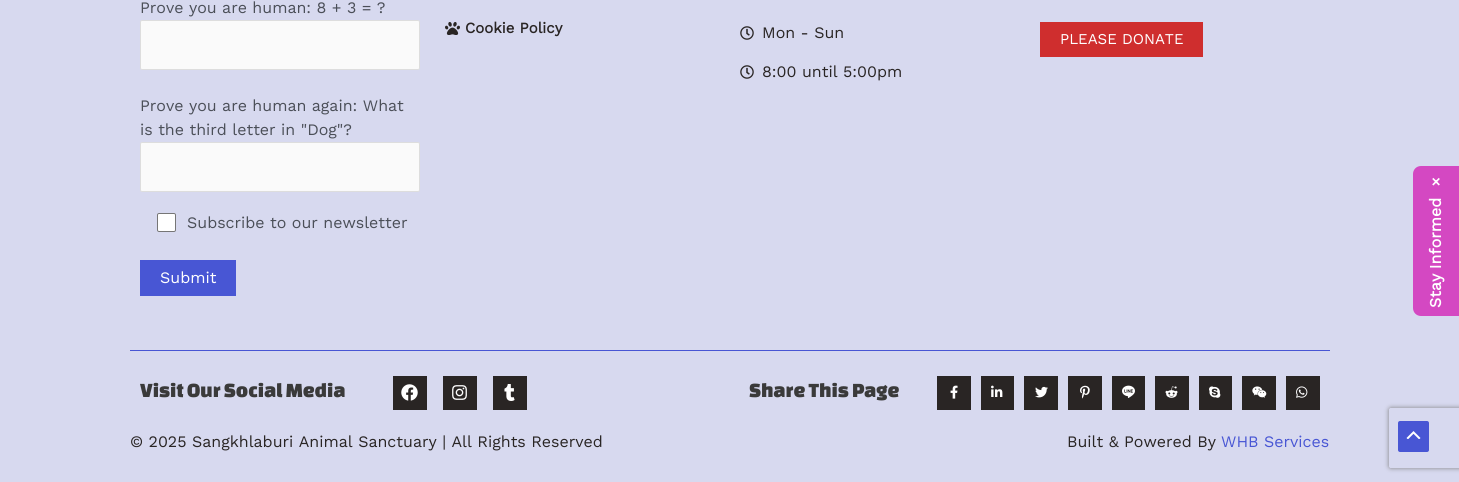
#include <cairo.h>
#include <math.h>
#include <stddef.h>


static void ink(cairo_t *ctx, unsigned color) {
    cairo_set_source_rgb(ctx, (color >> 16) / 255.0, (color >> 8 & 255) / 255.0, (color & 255) / 255.0);
}

static void write_spaced(cairo_t *ctx, double x, double y, const char *s, double letter, double word) {
    cairo_move_to(ctx, x, y);
    while (*s) {
        char ch[5] = {0};
        int n = 0;
        do ch[n++] = *s++; while ((*s & 0xC0) == 0x80);
        cairo_show_text(ctx, ch);
        cairo_rel_move_to(ctx, letter + word * (*ch == ' '), 0);
    }
}

static void round_path(cairo_t *ctx, double x, double y, double w, double h, double r) {
    cairo_new_sub_path(ctx);
    cairo_arc(ctx, x + w - r, y + h - r, r, 0, M_PI / 2);
    cairo_arc(ctx, x + r, y + h - r, r, M_PI / 2, M_PI);
    cairo_arc(ctx, x + r, y + r, r, M_PI, 1.5 * M_PI);
    cairo_arc(ctx, x + w - r, y + r, r, 1.5 * M_PI, 2 * M_PI);
    cairo_close_path(ctx);
}

static void blur_box(cairo_t *ctx, double x, double y, double w, double h, double r, double blur, double alpha) {
    cairo_push_group_with_content(ctx, CAIRO_CONTENT_ALPHA);
    cairo_set_operator(ctx, CAIRO_OPERATOR_SOURCE);
    for (int i = 15; i >= -15 && fmin(w, h) + blur * i / 3 > 0; i -= 2) {
        double e = blur * i / 6;
        cairo_set_source_rgba(ctx, 0, 0, 0, alpha * erfc((i - 1) / 8.5) / 2);
        round_path(ctx, x - e, y - e, w + 2 * e, h + 2 * e, fmax(0, fmin(r + e + blur * .6, fmin(w, h) / 2 + e)));
        cairo_fill(ctx);
    }
    cairo_pattern_t *soft = cairo_pop_group(ctx);
    cairo_mask(ctx, soft);
    cairo_pattern_destroy(soft);
}

static void paste(cairo_t *ctx, const char *path, double x, double y, double w, double h) {
    cairo_surface_t *image = cairo_image_surface_create_from_png(path);
    cairo_save(ctx);
    cairo_set_source_surface(ctx, image, x, y);
    cairo_rectangle(ctx, x, y, w, h);
    cairo_fill(ctx);
    cairo_restore(ctx);
    cairo_surface_destroy(image);
}

int main(void) {
    cairo_surface_t *surface = cairo_image_surface_create(CAIRO_FORMAT_RGB24, 1459, 482);
    cairo_t *ctx = cairo_create(surface);
    cairo_font_options_t *options = cairo_font_options_create();
    cairo_font_options_set_hint_metrics(options, CAIRO_HINT_METRICS_OFF);
    cairo_font_options_set_hint_style(options, CAIRO_HINT_STYLE_NONE);
    cairo_set_font_options(ctx, options);
    cairo_set_miter_limit(ctx, 4);
    ink(ctx, 0xD7D9EF);
    cairo_paint(ctx);
    cairo_select_font_face(ctx, "Work Sans", CAIRO_FONT_SLANT_NORMAL, CAIRO_FONT_WEIGHT_NORMAL);
    cairo_set_font_size(ctx, 16);
    ink(ctx, 0x4B4F58);
    cairo_move_to(ctx, 140, 13);
    cairo_show_text(ctx, "Prove you are human: 8 + 3 = ?");
    ink(ctx, 0xFAFAFA);
    round_path(ctx, 140.5, 20.5, 279, 49, 1.5);
    cairo_fill_preserve(ctx);
    ink(ctx, 0xDDDDDD);
    cairo_set_line_width(ctx, 1);
    cairo_stroke(ctx);
    ink(ctx, 0x4B4F58);
    cairo_move_to(ctx, 140, 111);
    cairo_show_text(ctx, "Prove you are human again: What");
    cairo_move_to(ctx, 140, 135);
    cairo_show_text(ctx, "is the third letter in \"Dog\"?");
    ink(ctx, 0xFAFAFA);
    round_path(ctx, 140.5, 142.5, 279, 49, 1.5);
    cairo_fill_preserve(ctx);
    ink(ctx, 0xDDDDDD);
    cairo_stroke(ctx);
    ink(ctx, 0xFFFFFF);
    round_path(ctx, 157.5, 213.5, 18, 18, 1.5);
    cairo_fill_preserve(ctx);
    ink(ctx, 0x767676);
    cairo_stroke(ctx);
    ink(ctx, 0x4B4F58);
    cairo_move_to(ctx, 187, 228);
    cairo_show_text(ctx, "Subscribe to our newsletter");
    ink(ctx, 0x4856D4);
    cairo_rectangle(ctx, 140, 260, 96, 36);
    cairo_fill(ctx);
    ink(ctx, 0xFFFFFF);
    cairo_move_to(ctx, 160, 283);
    cairo_show_text(ctx, "Submit");
    paste(ctx, "media/1.png", 445, 22, 15, 13);
    cairo_select_font_face(ctx, "Work Sans", CAIRO_FONT_SLANT_NORMAL, CAIRO_FONT_WEIGHT_BOLD);
    cairo_set_font_size(ctx, 15);
    ink(ctx, 0x292524);
    cairo_move_to(ctx, 465, 33);
    cairo_show_text(ctx, "Cookie Policy");
    paste(ctx, "media/2.png", 740, 26, 14, 14);
    cairo_select_font_face(ctx, "Work Sans", CAIRO_FONT_SLANT_NORMAL, CAIRO_FONT_WEIGHT_NORMAL);
    cairo_set_font_size(ctx, 16);
    cairo_move_to(ctx, 762, 38);
    cairo_show_text(ctx, "Mon - Sun");
    paste(ctx, "media/2.png", 740, 65, 14, 14);
    cairo_move_to(ctx, 762, 77);
    cairo_show_text(ctx, "8:00 until 5:00pm");
    ink(ctx, 0xCF2E2E);
    cairo_rectangle(ctx, 1040, 22, 163, 35);
    cairo_fill(ctx);
    cairo_set_font_size(ctx, 15);
    ink(ctx, 0xFFFFFF);
    cairo_move_to(ctx, 1060, 44);
    cairo_show_text(ctx, "PLEASE DONATE");
    ink(ctx, 0x4856D4);
    cairo_rectangle(ctx, 130, 350, 1200, 1);
    cairo_fill(ctx);
    cairo_select_font_face(ctx, "Changa One", CAIRO_FONT_SLANT_NORMAL, CAIRO_FONT_WEIGHT_NORMAL);
    cairo_set_font_size(ctx, 21);
    ink(ctx, 0x3A3A3A);
    cairo_move_to(ctx, 140, 397);
    cairo_show_text(ctx, "Visit Our Social Media");
    ink(ctx, 0x292524);
    cairo_rectangle(ctx, 393, 376, 34, 34);
    cairo_fill(ctx);
    paste(ctx, "media/3.png", 401, 384, 17, 17);
    cairo_rectangle(ctx, 443, 376, 34, 34);
    cairo_fill(ctx);
    paste(ctx, "media/4.png", 452, 385, 15, 15);
    cairo_rectangle(ctx, 493, 376, 34, 34);
    cairo_fill(ctx);
    paste(ctx, "media/5.png", 504, 384, 11, 17);
    ink(ctx, 0x3A3A3A);
    cairo_move_to(ctx, 749, 397);
    cairo_show_text(ctx, "Share This Page");
    ink(ctx, 0x292524);
    cairo_rectangle(ctx, 937, 376, 34, 34);
    cairo_fill(ctx);
    paste(ctx, "media/6.png", 950, 385, 8, 14);
    cairo_rectangle(ctx, 981, 376, 33, 34);
    cairo_fill(ctx);
    paste(ctx, "media/7.png", 991, 385, 12, 12);
    cairo_rectangle(ctx, 1024, 376, 34, 34);
    cairo_fill(ctx);
    paste(ctx, "media/8.png", 1035, 386, 13, 12);
    cairo_rectangle(ctx, 1068, 376, 34, 34);
    cairo_fill(ctx);
    paste(ctx, "media/9.png", 1080, 385, 10, 14);
    cairo_rectangle(ctx, 1112, 376, 33, 34);
    cairo_fill(ctx);
    paste(ctx, "media/10.png", 1122, 385, 13, 13);
    cairo_rectangle(ctx, 1155, 376, 34, 34);
    cairo_fill(ctx);
    paste(ctx, "media/11.png", 1165, 386, 13, 12);
    cairo_rectangle(ctx, 1199, 376, 33, 34);
    cairo_fill(ctx);
    paste(ctx, "media/12.png", 1209, 386, 12, 12);
    cairo_rectangle(ctx, 1242, 376, 34, 34);
    cairo_fill(ctx);
    paste(ctx, "media/13.png", 1252, 386, 15, 12);
    cairo_rectangle(ctx, 1286, 376, 34, 34);
    cairo_fill(ctx);
    paste(ctx, "media/14.png", 1296, 386, 12, 12);
    cairo_select_font_face(ctx, "Work Sans", CAIRO_FONT_SLANT_NORMAL, CAIRO_FONT_WEIGHT_NORMAL);
    cairo_set_font_size(ctx, 16);
    cairo_move_to(ctx, 130, 447);
    cairo_show_text(ctx, "© 2025 Sangkhlaburi Animal Sanctuary | All Rights Reserved");
    cairo_move_to(ctx, 1067, 447);
    cairo_show_text(ctx, "Built & Powered By");
    ink(ctx, 0x4856D4);
    cairo_move_to(ctx, 1221, 447);
    cairo_show_text(ctx, "WHB Services");
    ink(ctx, 0xD448C2);
    cairo_new_path(ctx);
    cairo_move_to(ctx, 1421, 166);
    cairo_line_to(ctx, 1459, 166);
    cairo_line_to(ctx, 1459, 316);
    cairo_line_to(ctx, 1421, 316);
    cairo_curve_to(ctx, 1416.5, 316, 1413, 312.5, 1413, 308);
    cairo_line_to(ctx, 1413, 174);
    cairo_curve_to(ctx, 1413, 169.5, 1416.5, 166, 1421, 166);
    cairo_close_path(ctx);
    cairo_fill(ctx);
    cairo_select_font_face(ctx, "Work Sans", CAIRO_FONT_SLANT_NORMAL, CAIRO_FONT_WEIGHT_BOLD);
    ink(ctx, 0xFFFFFF);
    cairo_move_to(ctx, 1431, 187);
    cairo_show_text(ctx, "×");
    cairo_save(ctx);
    cairo_translate(ctx, 1441, 308);
    cairo_rotate(ctx, -90 * M_PI / 180);
    write_spaced(ctx, 0, 0, "Stay Informed", 0, -1);
    cairo_restore(ctx);
    cairo_save(ctx);
    cairo_set_fill_rule(ctx, CAIRO_FILL_RULE_EVEN_ODD);
    cairo_new_path(ctx);
    cairo_move_to(ctx, 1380, 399);
    cairo_line_to(ctx, 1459, 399);
    cairo_line_to(ctx, 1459, 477);
    cairo_line_to(ctx, 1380, 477);
    cairo_close_path(ctx);
    cairo_move_to(ctx, 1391, 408);
    cairo_line_to(ctx, 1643, 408);
    cairo_curve_to(ctx, 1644, 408, 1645, 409, 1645, 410);
    cairo_line_to(ctx, 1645, 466);
    cairo_curve_to(ctx, 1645, 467, 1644, 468, 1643, 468);
    cairo_line_to(ctx, 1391, 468);
    cairo_curve_to(ctx, 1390, 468, 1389, 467, 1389, 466);
    cairo_line_to(ctx, 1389, 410);
    cairo_curve_to(ctx, 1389, 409, 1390, 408, 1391, 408);
    cairo_close_path(ctx);
    cairo_clip(ctx);
    ink(ctx, 0x808080);
    blur_box(ctx, 1389, 408, 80, 60, 2, 2.5, 1);
    cairo_restore(ctx);
    ink(ctx, 0x4856D4);
    round_path(ctx, 1398, 421, 31, 31, 2);
    cairo_fill(ctx);
    paste(ctx, "media/15.png", 1406, 431, 15, 8);
    cairo_surface_write_to_png(surface, "image.png");
    cairo_font_options_destroy(options);
    cairo_destroy(ctx);
    cairo_surface_destroy(surface);
    return 0;
}
